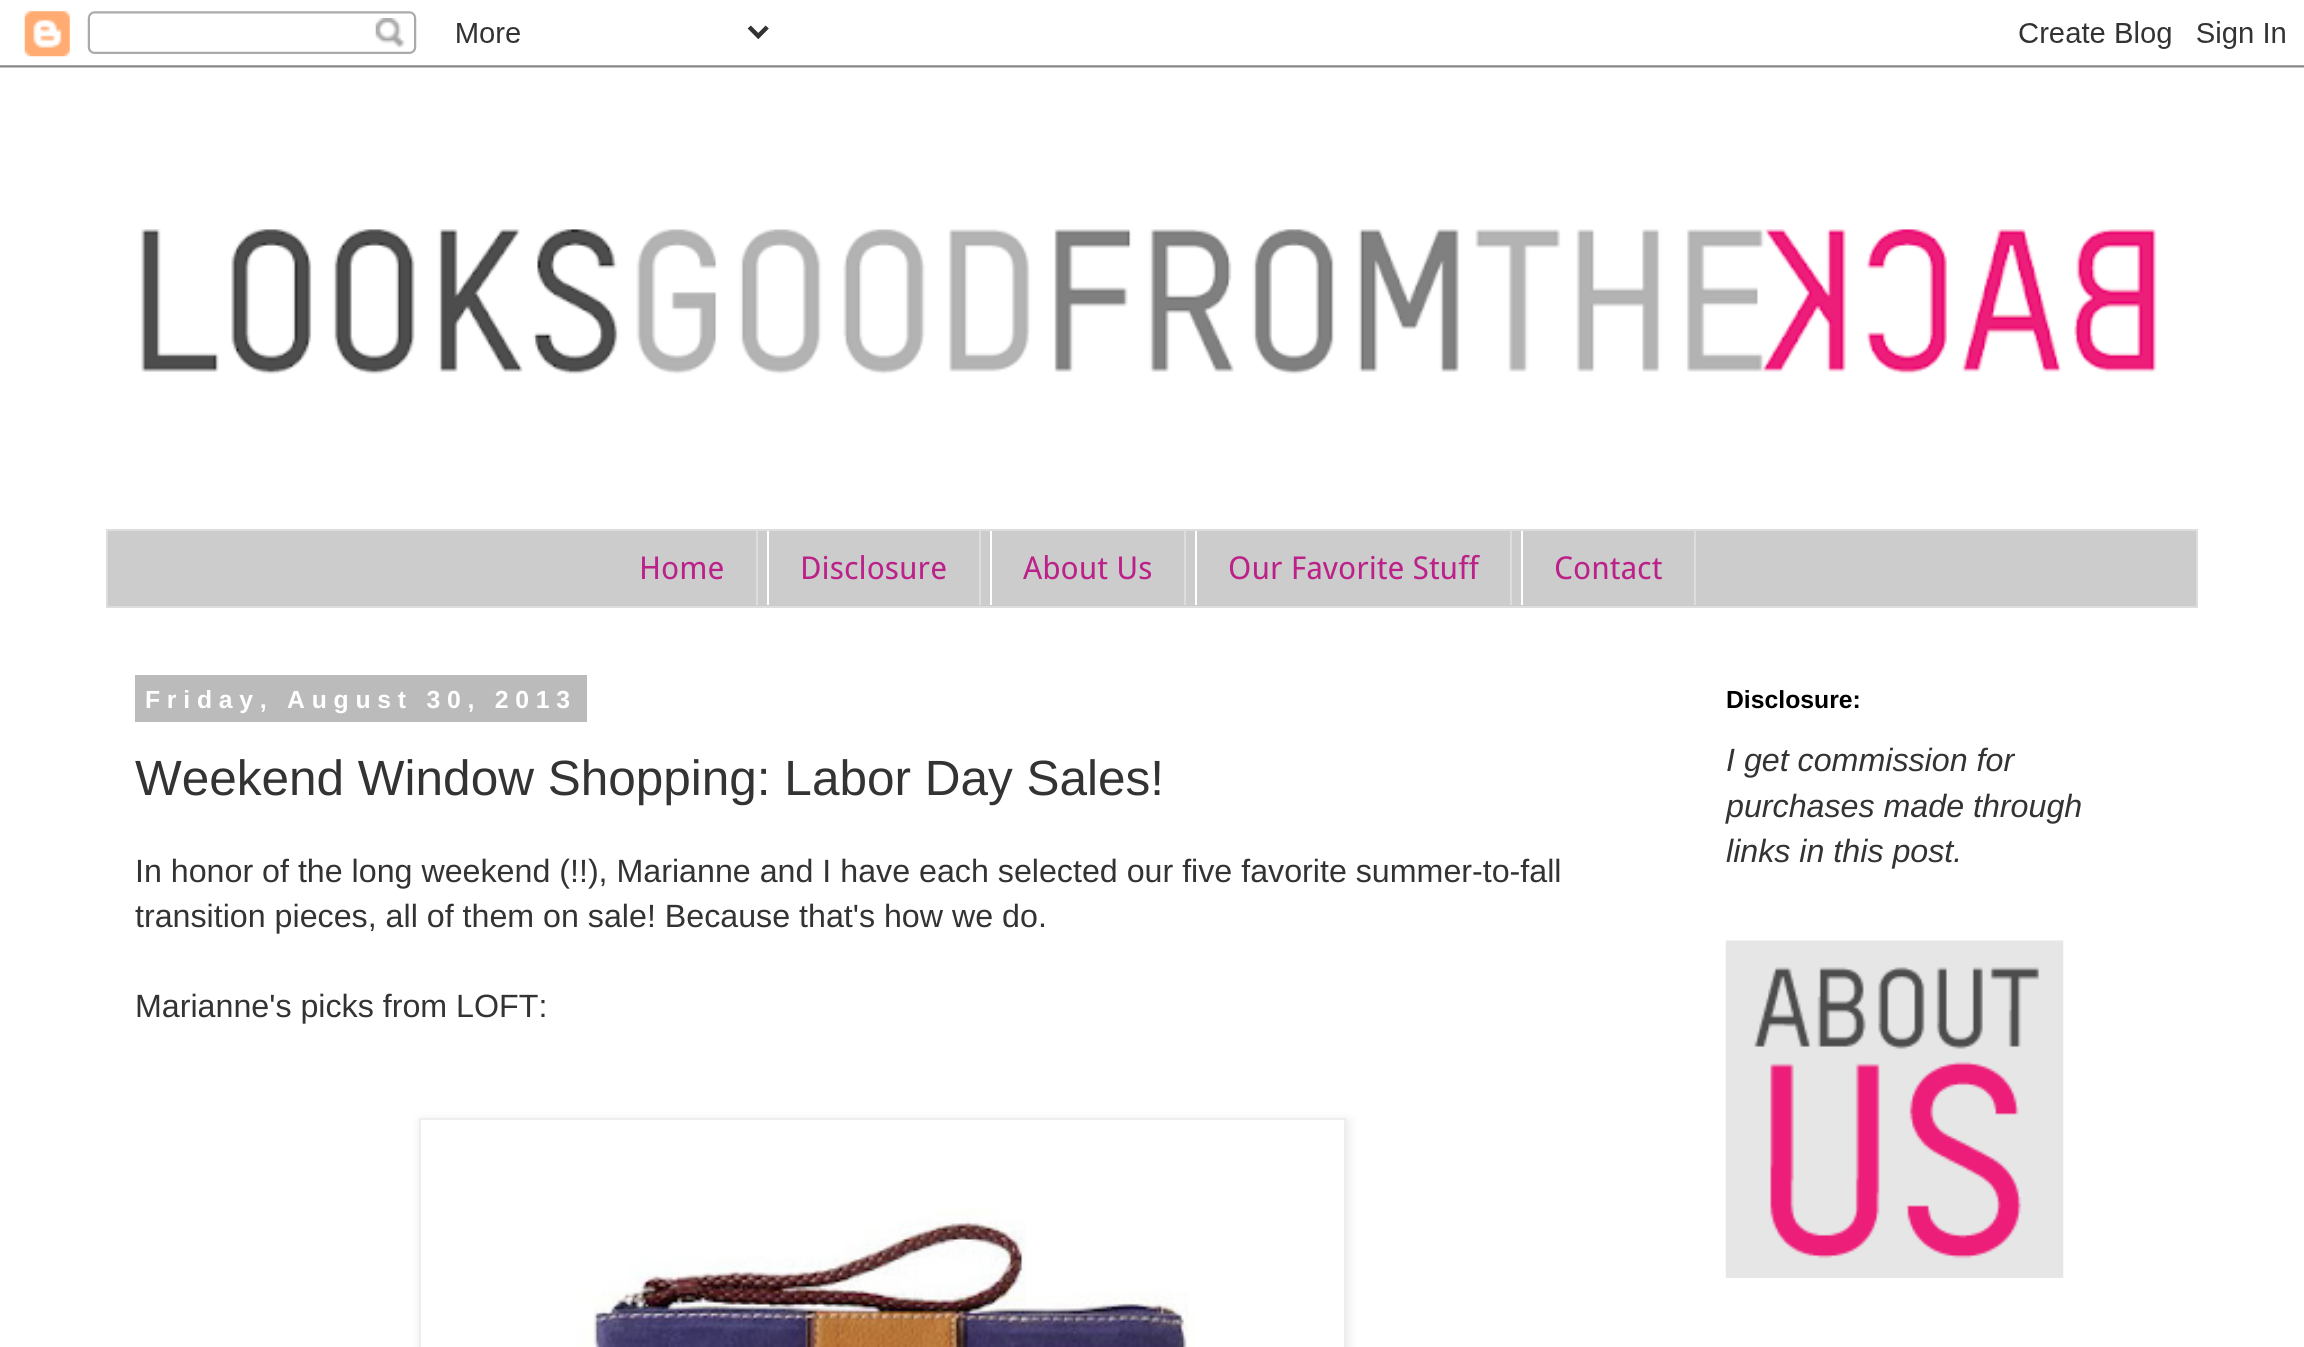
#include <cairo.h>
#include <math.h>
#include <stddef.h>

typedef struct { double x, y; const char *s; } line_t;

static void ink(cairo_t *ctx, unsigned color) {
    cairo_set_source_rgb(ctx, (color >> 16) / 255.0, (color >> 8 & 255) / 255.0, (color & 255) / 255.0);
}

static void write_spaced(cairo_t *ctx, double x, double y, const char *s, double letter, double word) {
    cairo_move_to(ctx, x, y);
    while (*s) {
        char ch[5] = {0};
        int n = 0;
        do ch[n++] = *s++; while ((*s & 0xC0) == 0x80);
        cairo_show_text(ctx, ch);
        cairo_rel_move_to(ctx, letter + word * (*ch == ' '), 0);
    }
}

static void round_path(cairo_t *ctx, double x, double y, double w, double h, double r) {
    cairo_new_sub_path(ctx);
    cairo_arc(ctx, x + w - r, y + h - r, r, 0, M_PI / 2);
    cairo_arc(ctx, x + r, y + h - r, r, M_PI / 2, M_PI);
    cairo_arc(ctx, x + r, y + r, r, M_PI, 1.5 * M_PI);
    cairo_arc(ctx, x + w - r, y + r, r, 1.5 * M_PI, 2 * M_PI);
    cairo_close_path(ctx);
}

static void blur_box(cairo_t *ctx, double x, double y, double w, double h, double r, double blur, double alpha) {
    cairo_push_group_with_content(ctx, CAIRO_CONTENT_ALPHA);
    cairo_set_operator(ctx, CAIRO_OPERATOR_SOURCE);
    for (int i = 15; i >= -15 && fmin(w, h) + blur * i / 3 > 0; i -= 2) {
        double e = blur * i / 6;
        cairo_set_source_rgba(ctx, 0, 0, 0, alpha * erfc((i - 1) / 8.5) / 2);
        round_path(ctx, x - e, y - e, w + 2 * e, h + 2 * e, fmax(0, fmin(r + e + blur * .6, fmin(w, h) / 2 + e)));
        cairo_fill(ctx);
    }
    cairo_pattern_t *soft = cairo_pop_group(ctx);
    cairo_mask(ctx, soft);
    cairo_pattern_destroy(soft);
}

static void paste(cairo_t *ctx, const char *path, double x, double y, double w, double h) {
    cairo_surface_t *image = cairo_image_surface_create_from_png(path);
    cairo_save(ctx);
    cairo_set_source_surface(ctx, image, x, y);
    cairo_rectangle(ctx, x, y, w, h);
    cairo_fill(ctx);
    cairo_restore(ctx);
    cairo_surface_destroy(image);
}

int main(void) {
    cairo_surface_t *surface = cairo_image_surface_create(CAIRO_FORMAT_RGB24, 2304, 1347);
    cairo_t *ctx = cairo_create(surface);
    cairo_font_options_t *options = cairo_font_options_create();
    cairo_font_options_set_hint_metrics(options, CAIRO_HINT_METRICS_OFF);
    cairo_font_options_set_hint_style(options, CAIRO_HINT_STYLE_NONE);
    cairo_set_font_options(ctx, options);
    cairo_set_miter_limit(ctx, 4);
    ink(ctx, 0xFFFFFF);
    cairo_paint(ctx);
    paste(ctx, "media/1.png", 0, 11, 2304, 57);
    paste(ctx, "media/2.png", 141, 229, 2016, 145);
    ink(ctx, 0xCCCCCC);
    cairo_rectangle(ctx, 107, 530, 2090, 77);
    cairo_fill_preserve(ctx);
    ink(ctx, 0xDDDDDD);
    cairo_stroke(ctx);
    cairo_rectangle(ctx, 756, 531, 2, 74);
    cairo_fill(ctx);
    cairo_select_font_face(ctx, "Droid Sans", CAIRO_FONT_SLANT_NORMAL, CAIRO_FONT_WEIGHT_NORMAL);
    cairo_set_font_size(ctx, 31.5);
    ink(ctx, 0xBB2188);
    cairo_move_to(ctx, 639, 579);
    cairo_show_text(ctx, "Home");
    ink(ctx, 0xDDDDDD);
    cairo_rectangle(ctx, 979, 531, 2, 74);
    cairo_fill(ctx);
    ink(ctx, 0xFFFFFF);
    cairo_rectangle(ctx, 767, 531, 2, 74);
    cairo_fill(ctx);
    ink(ctx, 0xBB2188);
    cairo_move_to(ctx, 800, 579);
    cairo_show_text(ctx, "Disclosure");
    ink(ctx, 0xDDDDDD);
    cairo_rectangle(ctx, 1184, 531, 2, 74);
    cairo_fill(ctx);
    ink(ctx, 0xFFFFFF);
    cairo_rectangle(ctx, 990, 531, 2, 74);
    cairo_fill(ctx);
    ink(ctx, 0xBB2188);
    cairo_move_to(ctx, 1023, 579);
    cairo_show_text(ctx, "About Us");
    ink(ctx, 0xDDDDDD);
    cairo_rectangle(ctx, 1510, 531, 2, 74);
    cairo_fill(ctx);
    ink(ctx, 0xFFFFFF);
    cairo_rectangle(ctx, 1195, 531, 2, 74);
    cairo_fill(ctx);
    ink(ctx, 0xBB2188);
    cairo_move_to(ctx, 1228, 579);
    cairo_show_text(ctx, "Our Favorite Stuff");
    ink(ctx, 0xDDDDDD);
    cairo_rectangle(ctx, 1694, 531, 2, 74);
    cairo_fill(ctx);
    ink(ctx, 0xFFFFFF);
    cairo_rectangle(ctx, 1521, 531, 2, 74);
    cairo_fill(ctx);
    ink(ctx, 0xBB2188);
    cairo_move_to(ctx, 1554, 579);
    cairo_show_text(ctx, "Contact");
    ink(ctx, 0xBBBBBB);
    cairo_rectangle(ctx, 135, 675, 452, 47);
    cairo_fill(ctx);
    cairo_select_font_face(ctx, "Liberation Sans", CAIRO_FONT_SLANT_NORMAL, CAIRO_FONT_WEIGHT_BOLD);
    cairo_set_font_size(ctx, 24.75);
    ink(ctx, 0xFFFFFF);
    write_spaced(ctx, 145, 708, "Friday, August 30, 2013", 6.75, 0);
    cairo_select_font_face(ctx, "Liberation Sans", CAIRO_FONT_SLANT_NORMAL, CAIRO_FONT_WEIGHT_NORMAL);
    cairo_set_font_size(ctx, 49.5);
    ink(ctx, 0x333333);
    cairo_move_to(ctx, 135, 795);
    cairo_show_text(ctx, "Weekend Window Shopping: Labor Day Sales!");
    cairo_set_font_size(ctx, 32.2);
    {
        static const line_t items[] = {
            {135, 882, "In honor of the long weekend (!!), Marianne and I have each selected our five favorite summer-to-fall"},
            {135, 927, "transition pieces, all of them on sale! Because that's how we do."},
            {135, 1017, "Marianne's picks from LOFT:"},
        };
        for (size_t i = 0; i < sizeof items / sizeof *items; i++) {
            cairo_move_to(ctx, items[i].x, items[i].y);
            cairo_show_text(ctx, items[i].s);
        }
    }
    ink(ctx, 0x000000);
    blur_box(ctx, 421, 1121, 927, 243, 0, 5.5, 0.1);
    ink(ctx, 0xFFFFFF);
    cairo_rectangle(ctx, 420, 1119, 925, 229);
    cairo_fill_preserve(ctx);
    ink(ctx, 0xEEEEEE);
    cairo_stroke(ctx);
    paste(ctx, "media/3.png", 577, 1208, 617, 139);
    cairo_select_font_face(ctx, "Liberation Sans", CAIRO_FONT_SLANT_NORMAL, CAIRO_FONT_WEIGHT_BOLD);
    cairo_set_font_size(ctx, 24.75);
    ink(ctx, 0x000000);
    cairo_move_to(ctx, 1726, 708);
    cairo_show_text(ctx, "Disclosure:");
    cairo_select_font_face(ctx, "Liberation Sans", CAIRO_FONT_SLANT_ITALIC, CAIRO_FONT_WEIGHT_NORMAL);
    cairo_set_font_size(ctx, 32.2);
    ink(ctx, 0x333333);
    {
        static const line_t items[] = {
            {1726, 771, "I get commission for"},
            {1726, 817, "purchases made through"},
            {1726, 862, "links in this post."},
        };
        for (size_t i = 0; i < sizeof items / sizeof *items; i++) {
            cairo_move_to(ctx, items[i].x, items[i].y);
            cairo_show_text(ctx, items[i].s);
        }
    }
    paste(ctx, "media/4.png", 1725, 940, 339, 338);
    cairo_surface_write_to_png(surface, "image.png");
    cairo_font_options_destroy(options);
    cairo_destroy(ctx);
    cairo_surface_destroy(surface);
    return 0;
}
